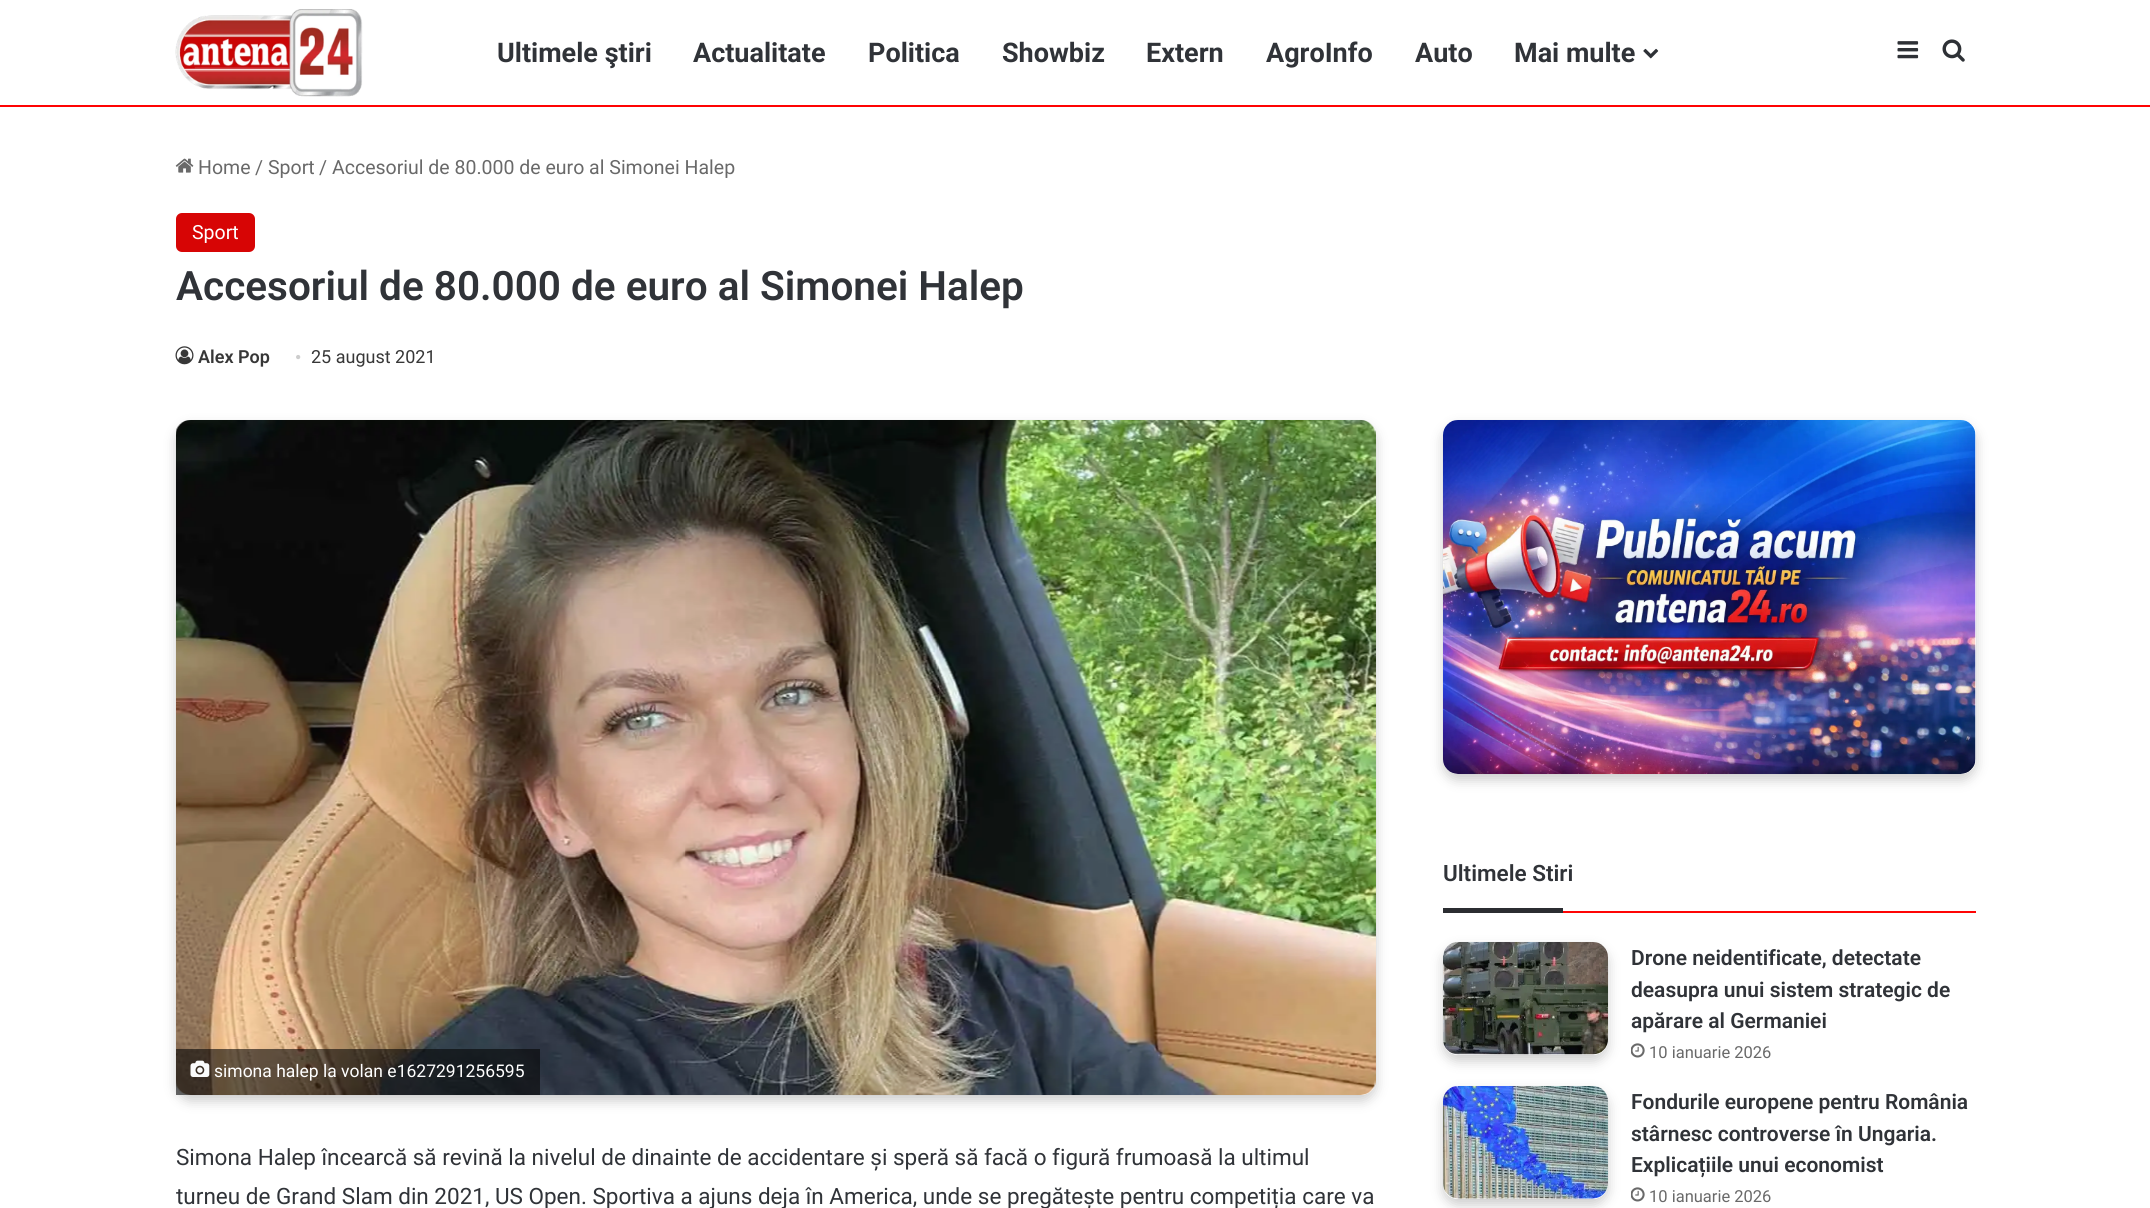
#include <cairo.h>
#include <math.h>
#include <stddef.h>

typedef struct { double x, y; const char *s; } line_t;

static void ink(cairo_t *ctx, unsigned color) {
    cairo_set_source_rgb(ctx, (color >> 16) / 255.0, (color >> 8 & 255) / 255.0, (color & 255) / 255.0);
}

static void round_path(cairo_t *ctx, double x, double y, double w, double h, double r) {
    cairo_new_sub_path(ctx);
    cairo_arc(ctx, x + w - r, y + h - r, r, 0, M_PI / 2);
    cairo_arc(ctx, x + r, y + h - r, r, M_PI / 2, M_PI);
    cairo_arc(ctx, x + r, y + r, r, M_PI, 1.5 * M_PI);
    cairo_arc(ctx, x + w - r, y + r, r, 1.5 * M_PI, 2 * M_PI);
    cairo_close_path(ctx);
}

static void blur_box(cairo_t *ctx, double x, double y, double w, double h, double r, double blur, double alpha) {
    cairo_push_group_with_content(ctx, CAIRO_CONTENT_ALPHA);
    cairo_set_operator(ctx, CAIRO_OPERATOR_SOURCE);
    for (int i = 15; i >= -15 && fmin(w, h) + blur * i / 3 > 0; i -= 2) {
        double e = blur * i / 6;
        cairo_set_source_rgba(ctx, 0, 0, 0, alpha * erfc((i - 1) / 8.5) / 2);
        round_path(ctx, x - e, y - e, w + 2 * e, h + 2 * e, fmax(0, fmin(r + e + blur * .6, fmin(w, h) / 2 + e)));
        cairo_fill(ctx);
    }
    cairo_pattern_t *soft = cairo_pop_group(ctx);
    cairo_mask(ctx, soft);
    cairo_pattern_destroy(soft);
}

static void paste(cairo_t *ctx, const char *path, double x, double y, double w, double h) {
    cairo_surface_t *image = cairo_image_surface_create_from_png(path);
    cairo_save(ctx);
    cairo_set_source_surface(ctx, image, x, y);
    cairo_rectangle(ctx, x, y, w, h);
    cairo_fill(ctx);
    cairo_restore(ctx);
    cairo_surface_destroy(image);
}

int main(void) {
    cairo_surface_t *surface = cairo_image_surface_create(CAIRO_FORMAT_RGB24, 2150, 1208);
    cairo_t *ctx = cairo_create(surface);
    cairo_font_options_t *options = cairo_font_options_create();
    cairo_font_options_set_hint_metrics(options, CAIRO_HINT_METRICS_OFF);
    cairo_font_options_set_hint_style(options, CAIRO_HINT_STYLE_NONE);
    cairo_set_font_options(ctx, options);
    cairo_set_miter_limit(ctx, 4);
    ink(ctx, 0xFFFFFF);
    cairo_paint(ctx);
    ink(ctx, 0xFF0303);
    cairo_rectangle(ctx, 0, 105, 2150, 2);
    cairo_fill(ctx);
    paste(ctx, "media/1.png", 175, 9, 188, 88);
    cairo_select_font_face(ctx, "Roboto", CAIRO_FONT_SLANT_NORMAL, CAIRO_FONT_WEIGHT_BOLD);
    cairo_set_font_size(ctx, 27);
    ink(ctx, 0x303338);
    {
        static const line_t items[] = {
            {497, 62, "Ultimele ştiri"},
            {693, 62, "Actualitate"},
            {868, 62, "Politica"},
            {1002, 62, "Showbiz"},
            {1146, 62, "Extern"},
            {1266, 62, "AgroInfo"},
            {1415, 62, "Auto"},
            {1514, 62, "Mai multe"},
        };
        for (size_t i = 0; i < sizeof items / sizeof *items; i++) {
            cairo_move_to(ctx, items[i].x, items[i].y);
            cairo_show_text(ctx, items[i].s);
        }
    }
    paste(ctx, "media/2.png", 1643, 48, 16, 11);
    paste(ctx, "media/3.png", 1897, 41, 22, 18);
    paste(ctx, "media/4.png", 1942, 39, 23, 23);
    paste(ctx, "media/5.png", 175, 158, 19, 15);
    cairo_select_font_face(ctx, "Roboto", CAIRO_FONT_SLANT_NORMAL, CAIRO_FONT_WEIGHT_NORMAL);
    cairo_set_font_size(ctx, 19.5);
    ink(ctx, 0x696969);
    {
        static const line_t items[] = {
            {198, 174, "Home"},
            {255, 174, "/"},
            {268, 174, "Sport"},
            {319, 174, "/"},
            {332, 174, "Accesoriul de 80.000 de euro al Simonei Halep"},
        };
        for (size_t i = 0; i < sizeof items / sizeof *items; i++) {
            cairo_move_to(ctx, items[i].x, items[i].y);
            cairo_show_text(ctx, items[i].s);
        }
    }
    ink(ctx, 0xD70505);
    round_path(ctx, 176, 213, 79, 39, 6);
    cairo_fill(ctx);
    ink(ctx, 0xFFFFFF);
    cairo_move_to(ctx, 192, 239);
    cairo_show_text(ctx, "Sport");
    cairo_select_font_face(ctx, "Roboto SemiBold", CAIRO_FONT_SLANT_NORMAL, CAIRO_FONT_WEIGHT_NORMAL);
    cairo_set_font_size(ctx, 40.5);
    ink(ctx, 0x303338);
    cairo_move_to(ctx, 176, 300);
    cairo_show_text(ctx, "Accesoriul de 80.000 de euro al Simonei Halep");
    paste(ctx, "media/6.png", 175, 346, 19, 19);
    cairo_set_font_size(ctx, 18);
    ink(ctx, 0x373737);
    cairo_move_to(ctx, 198, 363);
    cairo_show_text(ctx, "Alex Pop");
    cairo_select_font_face(ctx, "Liberation Serif", CAIRO_FONT_SLANT_NORMAL, CAIRO_FONT_WEIGHT_NORMAL);
    ink(ctx, 0xCDCDCD);
    cairo_move_to(ctx, 295, 363);
    cairo_show_text(ctx, "•");
    cairo_select_font_face(ctx, "Roboto", CAIRO_FONT_SLANT_NORMAL, CAIRO_FONT_WEIGHT_NORMAL);
    ink(ctx, 0x373737);
    cairo_move_to(ctx, 311, 363);
    cairo_show_text(ctx, "25 august 2021");
    cairo_save(ctx);
    cairo_set_fill_rule(ctx, CAIRO_FILL_RULE_EVEN_ODD);
    cairo_new_path(ctx);
    cairo_move_to(ctx, 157, 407);
    cairo_line_to(ctx, 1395, 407);
    cairo_line_to(ctx, 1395, 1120);
    cairo_line_to(ctx, 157, 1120);
    cairo_close_path(ctx);
    cairo_move_to(ctx, 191, 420);
    cairo_line_to(ctx, 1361, 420);
    cairo_curve_to(ctx, 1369.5, 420, 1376, 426.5, 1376, 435);
    cairo_line_to(ctx, 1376, 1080);
    cairo_curve_to(ctx, 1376, 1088.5, 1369.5, 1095, 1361, 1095);
    cairo_line_to(ctx, 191, 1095);
    cairo_curve_to(ctx, 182.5, 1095, 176, 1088.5, 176, 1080);
    cairo_line_to(ctx, 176, 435);
    cairo_curve_to(ctx, 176, 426.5, 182.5, 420, 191, 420);
    cairo_close_path(ctx);
    cairo_clip(ctx);
    ink(ctx, 0x050505);
    blur_box(ctx, 176, 426, 1200, 675, 15, 6, 0.2);
    cairo_restore(ctx);
    paste(ctx, "media/7.png", 176, 420, 1200, 675);
    cairo_set_source_rgba(ctx, 0.02, 0.02, 0.02, 0.6);
    cairo_rectangle(ctx, 176, 1049, 364, 46);
    cairo_fill(ctx);
    paste(ctx, "media/8.png", 190, 1060, 20, 17);
    cairo_set_font_size(ctx, 17.5);
    ink(ctx, 0xFFFFFF);
    cairo_move_to(ctx, 214, 1077);
    cairo_show_text(ctx, "simona halep la volan e1627291256595");
    cairo_set_font_size(ctx, 22.5);
    ink(ctx, 0x303338);
    cairo_move_to(ctx, 176, 1165);
    cairo_show_text(ctx, "Simona Halep încearcă să revină la nivelul de dinainte de accidentare și speră să facă o figură frumoasă la ultimul");
    cairo_move_to(ctx, 176, 1204);
    cairo_show_text(ctx, "turneu de Grand Slam din 2021, US Open. Sportiva a ajuns deja în America, unde se pregătește pentru competiția care va");
    cairo_save(ctx);
    cairo_set_fill_rule(ctx, CAIRO_FILL_RULE_EVEN_ODD);
    cairo_new_path(ctx);
    cairo_move_to(ctx, 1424, 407);
    cairo_line_to(ctx, 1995, 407);
    cairo_line_to(ctx, 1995, 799);
    cairo_line_to(ctx, 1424, 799);
    cairo_close_path(ctx);
    cairo_move_to(ctx, 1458, 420);
    cairo_line_to(ctx, 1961, 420);
    cairo_curve_to(ctx, 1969.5, 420, 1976, 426.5, 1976, 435);
    cairo_line_to(ctx, 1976, 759);
    cairo_curve_to(ctx, 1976, 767.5, 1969.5, 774, 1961, 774);
    cairo_line_to(ctx, 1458, 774);
    cairo_curve_to(ctx, 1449.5, 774, 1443, 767.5, 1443, 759);
    cairo_line_to(ctx, 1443, 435);
    cairo_curve_to(ctx, 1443, 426.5, 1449.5, 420, 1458, 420);
    cairo_close_path(ctx);
    cairo_clip(ctx);
    ink(ctx, 0x050505);
    blur_box(ctx, 1443, 426, 533, 354, 15, 6, 0.2);
    cairo_restore(ctx);
    paste(ctx, "media/9.png", 1443, 420, 533, 354);
    ink(ctx, 0xFF0505);
    cairo_rectangle(ctx, 1563, 911, 413, 2);
    cairo_fill(ctx);
    cairo_select_font_face(ctx, "Roboto SemiBold", CAIRO_FONT_SLANT_NORMAL, CAIRO_FONT_WEIGHT_NORMAL);
    ink(ctx, 0x303338);
    cairo_move_to(ctx, 1443, 881);
    cairo_show_text(ctx, "Ultimele Stiri");
    ink(ctx, 0x2B2D31);
    cairo_rectangle(ctx, 1443, 908, 120, 5);
    cairo_fill(ctx);
    cairo_save(ctx);
    cairo_set_fill_rule(ctx, CAIRO_FILL_RULE_EVEN_ODD);
    cairo_new_path(ctx);
    cairo_move_to(ctx, 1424, 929);
    cairo_line_to(ctx, 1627, 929);
    cairo_line_to(ctx, 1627, 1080);
    cairo_line_to(ctx, 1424, 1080);
    cairo_close_path(ctx);
    cairo_move_to(ctx, 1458, 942);
    cairo_line_to(ctx, 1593, 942);
    cairo_curve_to(ctx, 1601.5, 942, 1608, 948.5, 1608, 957);
    cairo_line_to(ctx, 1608, 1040);
    cairo_curve_to(ctx, 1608, 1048.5, 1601.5, 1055, 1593, 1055);
    cairo_line_to(ctx, 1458, 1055);
    cairo_curve_to(ctx, 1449.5, 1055, 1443, 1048.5, 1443, 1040);
    cairo_line_to(ctx, 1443, 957);
    cairo_curve_to(ctx, 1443, 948.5, 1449.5, 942, 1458, 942);
    cairo_close_path(ctx);
    cairo_clip(ctx);
    ink(ctx, 0x050505);
    blur_box(ctx, 1443, 948, 165, 113, 15, 6, 0.2);
    cairo_restore(ctx);
    paste(ctx, "media/10.png", 1443, 942, 165, 113);
    cairo_set_font_size(ctx, 21);
    ink(ctx, 0x303338);
    {
        static const line_t items[] = {
            {1631, 965, "Drone neidentificate, detectate"},
            {1631, 997, "deasupra unui sistem strategic de"},
            {1631, 1028, "apărare al Germaniei"},
        };
        for (size_t i = 0; i < sizeof items / sizeof *items; i++) {
            cairo_move_to(ctx, items[i].x, items[i].y);
            cairo_show_text(ctx, items[i].s);
        }
    }
    paste(ctx, "media/11.png", 1631, 1043, 14, 15);
    cairo_select_font_face(ctx, "Roboto", CAIRO_FONT_SLANT_NORMAL, CAIRO_FONT_WEIGHT_NORMAL);
    cairo_set_font_size(ctx, 16.5);
    ink(ctx, 0x696969);
    cairo_move_to(ctx, 1649, 1058);
    cairo_show_text(ctx, "10 ianuarie 2026");
    cairo_save(ctx);
    cairo_set_fill_rule(ctx, CAIRO_FILL_RULE_EVEN_ODD);
    cairo_new_path(ctx);
    cairo_move_to(ctx, 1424, 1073);
    cairo_line_to(ctx, 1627, 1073);
    cairo_line_to(ctx, 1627, 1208);
    cairo_line_to(ctx, 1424, 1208);
    cairo_close_path(ctx);
    cairo_move_to(ctx, 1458, 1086);
    cairo_line_to(ctx, 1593, 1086);
    cairo_curve_to(ctx, 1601.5, 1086, 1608, 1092.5, 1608, 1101);
    cairo_line_to(ctx, 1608, 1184);
    cairo_curve_to(ctx, 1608, 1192.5, 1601.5, 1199, 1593, 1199);
    cairo_line_to(ctx, 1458, 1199);
    cairo_curve_to(ctx, 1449.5, 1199, 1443, 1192.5, 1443, 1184);
    cairo_line_to(ctx, 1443, 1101);
    cairo_curve_to(ctx, 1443, 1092.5, 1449.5, 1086, 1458, 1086);
    cairo_close_path(ctx);
    cairo_clip(ctx);
    ink(ctx, 0x050505);
    blur_box(ctx, 1443, 1092, 165, 113, 15, 6, 0.2);
    cairo_restore(ctx);
    paste(ctx, "media/12.png", 1443, 1086, 165, 113);
    cairo_select_font_face(ctx, "Roboto SemiBold", CAIRO_FONT_SLANT_NORMAL, CAIRO_FONT_WEIGHT_NORMAL);
    cairo_set_font_size(ctx, 21);
    ink(ctx, 0x303338);
    {
        static const line_t items[] = {
            {1631, 1109, "Fondurile europene pentru România"},
            {1631, 1141, "stârnesc controverse în Ungaria."},
            {1631, 1172, "Explicațiile unui economist"},
        };
        for (size_t i = 0; i < sizeof items / sizeof *items; i++) {
            cairo_move_to(ctx, items[i].x, items[i].y);
            cairo_show_text(ctx, items[i].s);
        }
    }
    paste(ctx, "media/11.png", 1631, 1187, 14, 15);
    cairo_select_font_face(ctx, "Roboto", CAIRO_FONT_SLANT_NORMAL, CAIRO_FONT_WEIGHT_NORMAL);
    cairo_set_font_size(ctx, 16.5);
    ink(ctx, 0x696969);
    cairo_move_to(ctx, 1649, 1202);
    cairo_show_text(ctx, "10 ianuarie 2026");
    cairo_surface_write_to_png(surface, "image.png");
    cairo_font_options_destroy(options);
    cairo_destroy(ctx);
    cairo_surface_destroy(surface);
    return 0;
}
